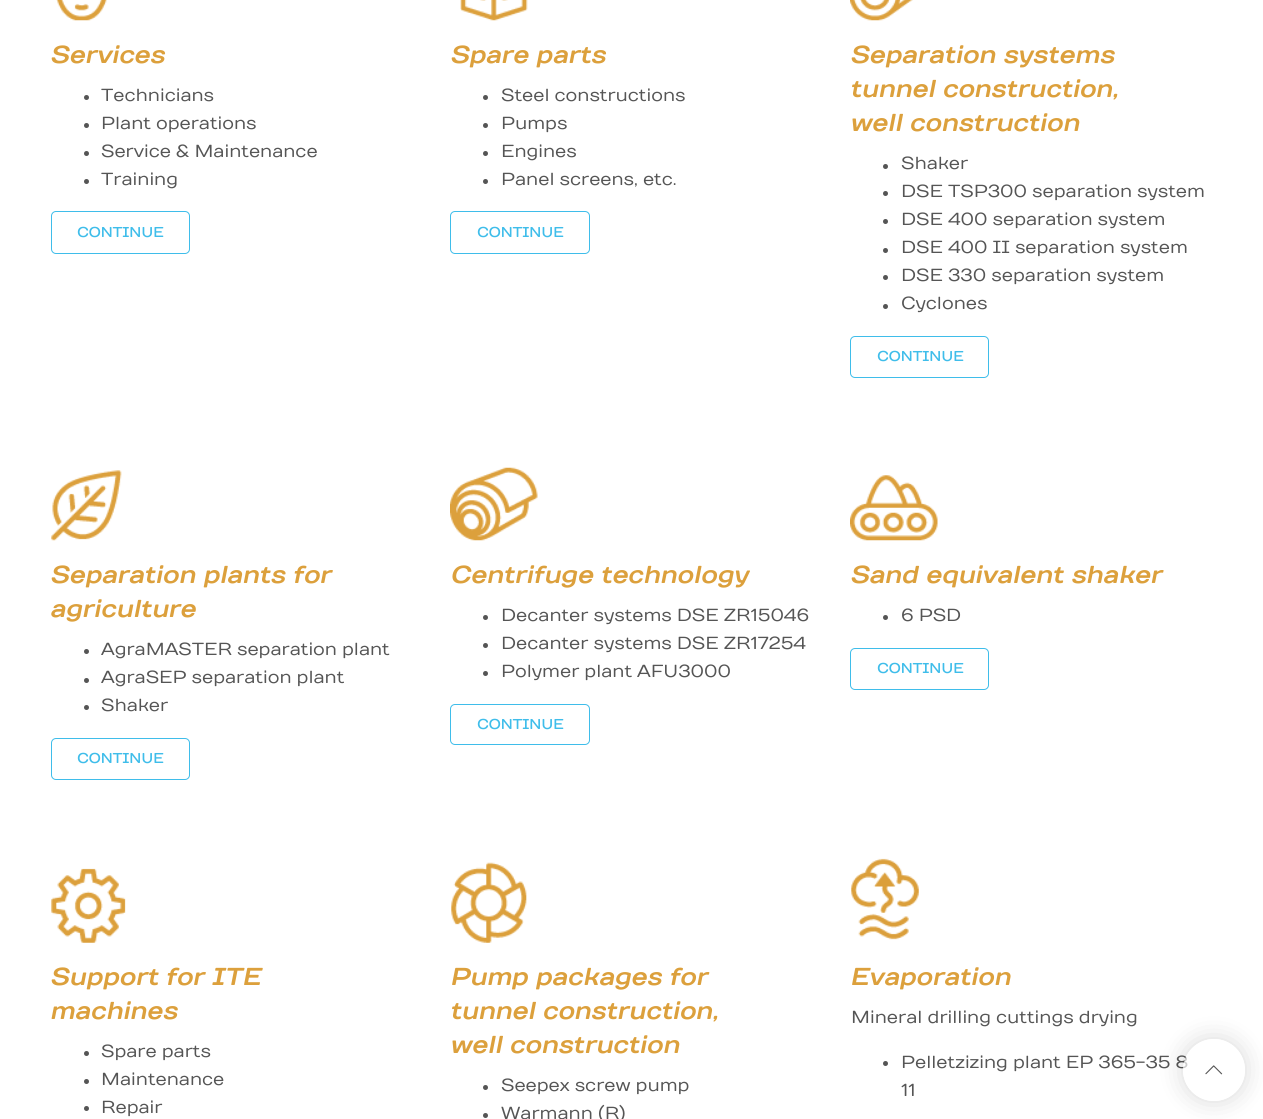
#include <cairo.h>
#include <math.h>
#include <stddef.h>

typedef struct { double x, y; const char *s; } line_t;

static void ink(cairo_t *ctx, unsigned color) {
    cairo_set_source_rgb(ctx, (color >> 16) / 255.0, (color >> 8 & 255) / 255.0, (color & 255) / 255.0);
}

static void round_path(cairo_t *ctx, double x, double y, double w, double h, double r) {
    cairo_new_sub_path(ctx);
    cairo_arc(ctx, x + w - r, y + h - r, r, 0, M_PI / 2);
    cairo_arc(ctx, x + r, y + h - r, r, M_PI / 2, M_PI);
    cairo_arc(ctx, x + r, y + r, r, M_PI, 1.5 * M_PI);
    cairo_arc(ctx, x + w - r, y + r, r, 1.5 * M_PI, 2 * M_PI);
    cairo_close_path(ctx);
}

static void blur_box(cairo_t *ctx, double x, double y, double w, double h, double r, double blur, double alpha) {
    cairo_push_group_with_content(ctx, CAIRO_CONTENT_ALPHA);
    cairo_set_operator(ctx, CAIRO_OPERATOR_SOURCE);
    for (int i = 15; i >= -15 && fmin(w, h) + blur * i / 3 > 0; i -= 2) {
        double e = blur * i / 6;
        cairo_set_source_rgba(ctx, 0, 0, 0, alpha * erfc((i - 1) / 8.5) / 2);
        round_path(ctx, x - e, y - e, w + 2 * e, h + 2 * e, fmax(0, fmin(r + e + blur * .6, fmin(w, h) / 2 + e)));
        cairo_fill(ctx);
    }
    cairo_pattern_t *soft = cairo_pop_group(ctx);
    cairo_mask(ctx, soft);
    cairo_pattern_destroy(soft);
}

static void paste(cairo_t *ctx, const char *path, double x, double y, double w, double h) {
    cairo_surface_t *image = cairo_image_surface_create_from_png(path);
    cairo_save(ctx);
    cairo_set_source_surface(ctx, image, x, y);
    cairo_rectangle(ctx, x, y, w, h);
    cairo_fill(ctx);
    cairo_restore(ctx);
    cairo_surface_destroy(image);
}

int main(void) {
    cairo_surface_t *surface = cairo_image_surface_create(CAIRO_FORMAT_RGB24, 1263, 1119);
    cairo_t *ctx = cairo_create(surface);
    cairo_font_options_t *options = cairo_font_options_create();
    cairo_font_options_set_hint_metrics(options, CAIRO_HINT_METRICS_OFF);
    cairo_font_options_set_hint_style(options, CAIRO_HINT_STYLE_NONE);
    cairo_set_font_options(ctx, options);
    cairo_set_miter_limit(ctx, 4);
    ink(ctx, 0xFFFFFF);
    cairo_paint(ctx);
    paste(ctx, "media/1.png", 56, 0, 51, 21);
    cairo_select_font_face(ctx, "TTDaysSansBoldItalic", CAIRO_FONT_SLANT_NORMAL, CAIRO_FONT_WEIGHT_NORMAL);
    cairo_set_font_size(ctx, 24.5);
    ink(ctx, 0xDCA03C);
    cairo_move_to(ctx, 51, 63);
    cairo_show_text(ctx, "Services");
    ink(ctx, 0x555555);
    cairo_new_path(ctx);
    cairo_arc(ctx, 86.5, 97.5, 2.5, 0, 2 * M_PI);
    cairo_fill(ctx);
    cairo_select_font_face(ctx, "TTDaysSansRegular", CAIRO_FONT_SLANT_NORMAL, CAIRO_FONT_WEIGHT_NORMAL);
    cairo_set_font_size(ctx, 17.5);
    cairo_move_to(ctx, 101, 101);
    cairo_show_text(ctx, "Technicians");
    cairo_new_path(ctx);
    cairo_arc(ctx, 86.5, 125.5, 2.5, 0, 2 * M_PI);
    cairo_fill(ctx);
    cairo_move_to(ctx, 101, 129);
    cairo_show_text(ctx, "Plant operations");
    cairo_new_path(ctx);
    cairo_arc(ctx, 86.5, 153.5, 2.5, 0, 2 * M_PI);
    cairo_fill(ctx);
    cairo_move_to(ctx, 101, 157);
    cairo_show_text(ctx, "Service & Maintenance");
    cairo_new_path(ctx);
    cairo_arc(ctx, 86.5, 181.5, 2.5, 0, 2 * M_PI);
    cairo_fill(ctx);
    cairo_move_to(ctx, 101, 185);
    cairo_show_text(ctx, "Training");
    round_path(ctx, 51.5, 211.5, 138, 42, 4.5);
    ink(ctx, 0x3FBDEA);
    cairo_set_line_width(ctx, 1);
    cairo_stroke(ctx);
    cairo_select_font_face(ctx, "TTDaysSansRegular", CAIRO_FONT_SLANT_NORMAL, CAIRO_FONT_WEIGHT_BOLD);
    cairo_set_font_size(ctx, 13.75);
    cairo_move_to(ctx, 77, 237);
    cairo_show_text(ctx, "CONTINUE");
    paste(ctx, "media/2.png", 460, 0, 68, 21);
    cairo_select_font_face(ctx, "TTDaysSansBoldItalic", CAIRO_FONT_SLANT_NORMAL, CAIRO_FONT_WEIGHT_NORMAL);
    cairo_set_font_size(ctx, 24.5);
    ink(ctx, 0xDCA03C);
    cairo_move_to(ctx, 451, 63);
    cairo_show_text(ctx, "Spare parts");
    ink(ctx, 0x555555);
    cairo_new_path(ctx);
    cairo_arc(ctx, 485.5, 97.5, 2.5, 0, 2 * M_PI);
    cairo_fill(ctx);
    cairo_select_font_face(ctx, "TTDaysSansRegular", CAIRO_FONT_SLANT_NORMAL, CAIRO_FONT_WEIGHT_NORMAL);
    cairo_set_font_size(ctx, 17.5);
    cairo_move_to(ctx, 501, 101);
    cairo_show_text(ctx, "Steel constructions");
    cairo_new_path(ctx);
    cairo_arc(ctx, 485.5, 125.5, 2.5, 0, 2 * M_PI);
    cairo_fill(ctx);
    cairo_move_to(ctx, 501, 129);
    cairo_show_text(ctx, "Pumps");
    cairo_new_path(ctx);
    cairo_arc(ctx, 485.5, 153.5, 2.5, 0, 2 * M_PI);
    cairo_fill(ctx);
    cairo_move_to(ctx, 501, 157);
    cairo_show_text(ctx, "Engines");
    cairo_new_path(ctx);
    cairo_arc(ctx, 485.5, 181.5, 2.5, 0, 2 * M_PI);
    cairo_fill(ctx);
    cairo_move_to(ctx, 501, 185);
    cairo_show_text(ctx, "Panel screens, etc.");
    round_path(ctx, 450.5, 211.5, 139, 42, 4.5);
    ink(ctx, 0x3FBDEA);
    cairo_stroke(ctx);
    cairo_select_font_face(ctx, "TTDaysSansRegular", CAIRO_FONT_SLANT_NORMAL, CAIRO_FONT_WEIGHT_BOLD);
    cairo_set_font_size(ctx, 13.75);
    cairo_move_to(ctx, 477, 237);
    cairo_show_text(ctx, "CONTINUE");
    paste(ctx, "media/3.png", 850, 0, 63, 21);
    cairo_select_font_face(ctx, "TTDaysSansBoldItalic", CAIRO_FONT_SLANT_NORMAL, CAIRO_FONT_WEIGHT_NORMAL);
    cairo_set_font_size(ctx, 24.5);
    ink(ctx, 0xDCA03C);
    {
        static const line_t items[] = {
            {851, 63, "Separation systems"},
            {851, 97, "tunnel construction,"},
            {851, 131, "well construction"},
        };
        for (size_t i = 0; i < sizeof items / sizeof *items; i++) {
            cairo_move_to(ctx, items[i].x, items[i].y);
            cairo_show_text(ctx, items[i].s);
        }
    }
    ink(ctx, 0x555555);
    cairo_new_path(ctx);
    cairo_arc(ctx, 885.5, 166.5, 2.5, 0, 2 * M_PI);
    cairo_fill(ctx);
    cairo_select_font_face(ctx, "TTDaysSansRegular", CAIRO_FONT_SLANT_NORMAL, CAIRO_FONT_WEIGHT_NORMAL);
    cairo_set_font_size(ctx, 17.5);
    cairo_move_to(ctx, 901, 169);
    cairo_show_text(ctx, "Shaker");
    cairo_new_path(ctx);
    cairo_arc(ctx, 885.5, 193.5, 2.5, 0, 2 * M_PI);
    cairo_fill(ctx);
    cairo_move_to(ctx, 901, 197);
    cairo_show_text(ctx, "DSE TSP300 separation system");
    cairo_new_path(ctx);
    cairo_arc(ctx, 885.5, 221.5, 2.5, 0, 2 * M_PI);
    cairo_fill(ctx);
    cairo_move_to(ctx, 901, 225);
    cairo_show_text(ctx, "DSE 400 separation system");
    cairo_new_path(ctx);
    cairo_arc(ctx, 885.5, 250.5, 2.5, 0, 2 * M_PI);
    cairo_fill(ctx);
    cairo_move_to(ctx, 901, 253);
    cairo_show_text(ctx, "DSE 400 II separation system");
    cairo_new_path(ctx);
    cairo_arc(ctx, 885.5, 277.5, 2.5, 0, 2 * M_PI);
    cairo_fill(ctx);
    cairo_move_to(ctx, 901, 281);
    cairo_show_text(ctx, "DSE 330 separation system");
    cairo_new_path(ctx);
    cairo_arc(ctx, 885.5, 306.5, 2.5, 0, 2 * M_PI);
    cairo_fill(ctx);
    cairo_move_to(ctx, 901, 309);
    cairo_show_text(ctx, "Cyclones");
    round_path(ctx, 850.5, 336.5, 138, 41, 4.5);
    ink(ctx, 0x3FBDEA);
    cairo_stroke(ctx);
    cairo_select_font_face(ctx, "TTDaysSansRegular", CAIRO_FONT_SLANT_NORMAL, CAIRO_FONT_WEIGHT_BOLD);
    cairo_set_font_size(ctx, 13.75);
    cairo_move_to(ctx, 877, 361);
    cairo_show_text(ctx, "CONTINUE");
    paste(ctx, "media/4.png", 51, 470, 71, 71);
    cairo_select_font_face(ctx, "TTDaysSansBoldItalic", CAIRO_FONT_SLANT_NORMAL, CAIRO_FONT_WEIGHT_NORMAL);
    cairo_set_font_size(ctx, 24.5);
    ink(ctx, 0xDCA03C);
    cairo_move_to(ctx, 51, 583);
    cairo_show_text(ctx, "Separation plants for");
    cairo_move_to(ctx, 51, 617);
    cairo_show_text(ctx, "agriculture");
    ink(ctx, 0x555555);
    cairo_new_path(ctx);
    cairo_arc(ctx, 86.5, 651.5, 2.5, 0, 2 * M_PI);
    cairo_fill(ctx);
    cairo_select_font_face(ctx, "TTDaysSansRegular", CAIRO_FONT_SLANT_NORMAL, CAIRO_FONT_WEIGHT_NORMAL);
    cairo_set_font_size(ctx, 17.5);
    cairo_move_to(ctx, 101, 655);
    cairo_show_text(ctx, "AgraMASTER separation plant");
    cairo_new_path(ctx);
    cairo_arc(ctx, 86.5, 680.5, 2.5, 0, 2 * M_PI);
    cairo_fill(ctx);
    cairo_move_to(ctx, 101, 683);
    cairo_show_text(ctx, "AgraSEP separation plant");
    cairo_new_path(ctx);
    cairo_arc(ctx, 86.5, 707.5, 2.5, 0, 2 * M_PI);
    cairo_fill(ctx);
    cairo_move_to(ctx, 101, 711);
    cairo_show_text(ctx, "Shaker");
    round_path(ctx, 51.5, 738.5, 138, 41, 4.5);
    ink(ctx, 0x3FBDEA);
    cairo_stroke(ctx);
    cairo_select_font_face(ctx, "TTDaysSansRegular", CAIRO_FONT_SLANT_NORMAL, CAIRO_FONT_WEIGHT_BOLD);
    cairo_set_font_size(ctx, 13.75);
    cairo_move_to(ctx, 77, 763);
    cairo_show_text(ctx, "CONTINUE");
    paste(ctx, "media/5.png", 450, 467, 88, 74);
    cairo_select_font_face(ctx, "TTDaysSansBoldItalic", CAIRO_FONT_SLANT_NORMAL, CAIRO_FONT_WEIGHT_NORMAL);
    cairo_set_font_size(ctx, 24.5);
    ink(ctx, 0xDCA03C);
    cairo_move_to(ctx, 451, 583);
    cairo_show_text(ctx, "Centrifuge technology");
    ink(ctx, 0x555555);
    cairo_new_path(ctx);
    cairo_arc(ctx, 485.5, 617.5, 2.5, 0, 2 * M_PI);
    cairo_fill(ctx);
    cairo_select_font_face(ctx, "TTDaysSansRegular", CAIRO_FONT_SLANT_NORMAL, CAIRO_FONT_WEIGHT_NORMAL);
    cairo_set_font_size(ctx, 17.5);
    cairo_move_to(ctx, 501, 621);
    cairo_show_text(ctx, "Decanter systems DSE ZR15046");
    cairo_new_path(ctx);
    cairo_arc(ctx, 485.5, 645.5, 2.5, 0, 2 * M_PI);
    cairo_fill(ctx);
    cairo_move_to(ctx, 501, 649);
    cairo_show_text(ctx, "Decanter systems DSE ZR17254");
    cairo_new_path(ctx);
    cairo_arc(ctx, 485.5, 673.5, 2.5, 0, 2 * M_PI);
    cairo_fill(ctx);
    cairo_move_to(ctx, 501, 677);
    cairo_show_text(ctx, "Polymer plant AFU3000");
    round_path(ctx, 450.5, 704.5, 139, 40, 4.5);
    ink(ctx, 0x3FBDEA);
    cairo_stroke(ctx);
    cairo_select_font_face(ctx, "TTDaysSansRegular", CAIRO_FONT_SLANT_NORMAL, CAIRO_FONT_WEIGHT_BOLD);
    cairo_set_font_size(ctx, 13.75);
    cairo_move_to(ctx, 477, 729);
    cairo_show_text(ctx, "CONTINUE");
    paste(ctx, "media/6.png", 850, 475, 88, 66);
    cairo_select_font_face(ctx, "TTDaysSansBoldItalic", CAIRO_FONT_SLANT_NORMAL, CAIRO_FONT_WEIGHT_NORMAL);
    cairo_set_font_size(ctx, 24.5);
    ink(ctx, 0xDCA03C);
    cairo_move_to(ctx, 851, 583);
    cairo_show_text(ctx, "Sand equivalent shaker");
    ink(ctx, 0x555555);
    cairo_new_path(ctx);
    cairo_arc(ctx, 885.5, 617.5, 2.5, 0, 2 * M_PI);
    cairo_fill(ctx);
    cairo_select_font_face(ctx, "TTDaysSansRegular", CAIRO_FONT_SLANT_NORMAL, CAIRO_FONT_WEIGHT_NORMAL);
    cairo_set_font_size(ctx, 17.5);
    cairo_move_to(ctx, 901, 621);
    cairo_show_text(ctx, "6 PSD");
    round_path(ctx, 850.5, 648.5, 138, 41, 4.5);
    ink(ctx, 0x3FBDEA);
    cairo_stroke(ctx);
    cairo_select_font_face(ctx, "TTDaysSansRegular", CAIRO_FONT_SLANT_NORMAL, CAIRO_FONT_WEIGHT_BOLD);
    cairo_set_font_size(ctx, 13.75);
    cairo_move_to(ctx, 877, 673);
    cairo_show_text(ctx, "CONTINUE");
    paste(ctx, "media/7.png", 51, 868, 75, 75);
    cairo_select_font_face(ctx, "TTDaysSansBoldItalic", CAIRO_FONT_SLANT_NORMAL, CAIRO_FONT_WEIGHT_NORMAL);
    cairo_set_font_size(ctx, 24.5);
    ink(ctx, 0xDCA03C);
    cairo_move_to(ctx, 51, 985);
    cairo_show_text(ctx, "Support for ITE");
    cairo_move_to(ctx, 51, 1019);
    cairo_show_text(ctx, "machines");
    ink(ctx, 0x555555);
    cairo_new_path(ctx);
    cairo_arc(ctx, 86.5, 1053.5, 2.5, 0, 2 * M_PI);
    cairo_fill(ctx);
    cairo_select_font_face(ctx, "TTDaysSansRegular", CAIRO_FONT_SLANT_NORMAL, CAIRO_FONT_WEIGHT_NORMAL);
    cairo_set_font_size(ctx, 17.5);
    cairo_move_to(ctx, 101, 1057);
    cairo_show_text(ctx, "Spare parts");
    cairo_new_path(ctx);
    cairo_arc(ctx, 86.5, 1081.5, 2.5, 0, 2 * M_PI);
    cairo_fill(ctx);
    cairo_move_to(ctx, 101, 1085);
    cairo_show_text(ctx, "Maintenance");
    cairo_new_path(ctx);
    cairo_arc(ctx, 86.5, 1108.5, 2.5, 0, 2 * M_PI);
    cairo_fill(ctx);
    cairo_move_to(ctx, 101, 1113);
    cairo_show_text(ctx, "Repair");
    paste(ctx, "media/8.png", 451, 862, 76, 81);
    cairo_select_font_face(ctx, "TTDaysSansBoldItalic", CAIRO_FONT_SLANT_NORMAL, CAIRO_FONT_WEIGHT_NORMAL);
    cairo_set_font_size(ctx, 24.5);
    ink(ctx, 0xDCA03C);
    {
        static const line_t items[] = {
            {451, 985, "Pump packages for"},
            {451, 1019, "tunnel construction,"},
            {451, 1053, "well construction"},
        };
        for (size_t i = 0; i < sizeof items / sizeof *items; i++) {
            cairo_move_to(ctx, items[i].x, items[i].y);
            cairo_show_text(ctx, items[i].s);
        }
    }
    ink(ctx, 0x555555);
    cairo_new_path(ctx);
    cairo_arc(ctx, 485.5, 1087.5, 2.5, 0, 2 * M_PI);
    cairo_fill(ctx);
    cairo_select_font_face(ctx, "TTDaysSansRegular", CAIRO_FONT_SLANT_NORMAL, CAIRO_FONT_WEIGHT_NORMAL);
    cairo_set_font_size(ctx, 17.5);
    cairo_move_to(ctx, 501, 1091);
    cairo_show_text(ctx, "Seepex screw pump");
    cairo_new_path(ctx);
    cairo_arc(ctx, 485.5, 1115.5, 2.5, 0, 2 * M_PI);
    cairo_fill(ctx);
    cairo_move_to(ctx, 501, 1119);
    cairo_show_text(ctx, "Warmann (R)");
    paste(ctx, "media/9.png", 851, 858, 68, 82);
    cairo_select_font_face(ctx, "TTDaysSansBoldItalic", CAIRO_FONT_SLANT_NORMAL, CAIRO_FONT_WEIGHT_NORMAL);
    cairo_set_font_size(ctx, 24.5);
    ink(ctx, 0xDCA03C);
    cairo_move_to(ctx, 851, 985);
    cairo_show_text(ctx, "Evaporation");
    cairo_select_font_face(ctx, "TTDaysSansRegular", CAIRO_FONT_SLANT_NORMAL, CAIRO_FONT_WEIGHT_NORMAL);
    cairo_set_font_size(ctx, 17.5);
    ink(ctx, 0x555555);
    cairo_move_to(ctx, 851, 1023);
    cairo_show_text(ctx, "Mineral drilling cuttings drying");
    cairo_new_path(ctx);
    cairo_arc(ctx, 885.5, 1063.5, 2.5, 0, 2 * M_PI);
    cairo_fill(ctx);
    cairo_move_to(ctx, 901, 1068);
    cairo_show_text(ctx, "Pelletzizing plant EP 365-35 8");
    cairo_move_to(ctx, 901, 1096);
    cairo_show_text(ctx, "11");
    cairo_save(ctx);
    cairo_set_fill_rule(ctx, CAIRO_FILL_RULE_EVEN_ODD);
    cairo_new_path(ctx);
    cairo_move_to(ctx, 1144, 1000);
    cairo_line_to(ctx, 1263, 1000);
    cairo_line_to(ctx, 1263, 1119);
    cairo_line_to(ctx, 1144, 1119);
    cairo_close_path(ctx);
    cairo_move_to(ctx, 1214, 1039);
    cairo_curve_to(ctx, 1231, 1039, 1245, 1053, 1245, 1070);
    cairo_curve_to(ctx, 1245, 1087, 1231, 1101, 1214, 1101);
    cairo_curve_to(ctx, 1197, 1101, 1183, 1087, 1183, 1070);
    cairo_curve_to(ctx, 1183, 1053, 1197, 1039, 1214, 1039);
    cairo_close_path(ctx);
    cairo_clip(ctx);
    ink(ctx, 0x000000);
    blur_box(ctx, 1183, 1039, 62, 62, 31, 12.5, 0.15);
    cairo_restore(ctx);
    cairo_set_source_rgba(ctx, 1, 1, 1, 0.7);
    cairo_arc(ctx, 1214, 1070, 31, 0, 2 * M_PI);
    cairo_fill(ctx);
    paste(ctx, "media/10.png", 1205, 1065, 18, 10);
    cairo_surface_write_to_png(surface, "image.png");
    cairo_font_options_destroy(options);
    cairo_destroy(ctx);
    cairo_surface_destroy(surface);
    return 0;
}
